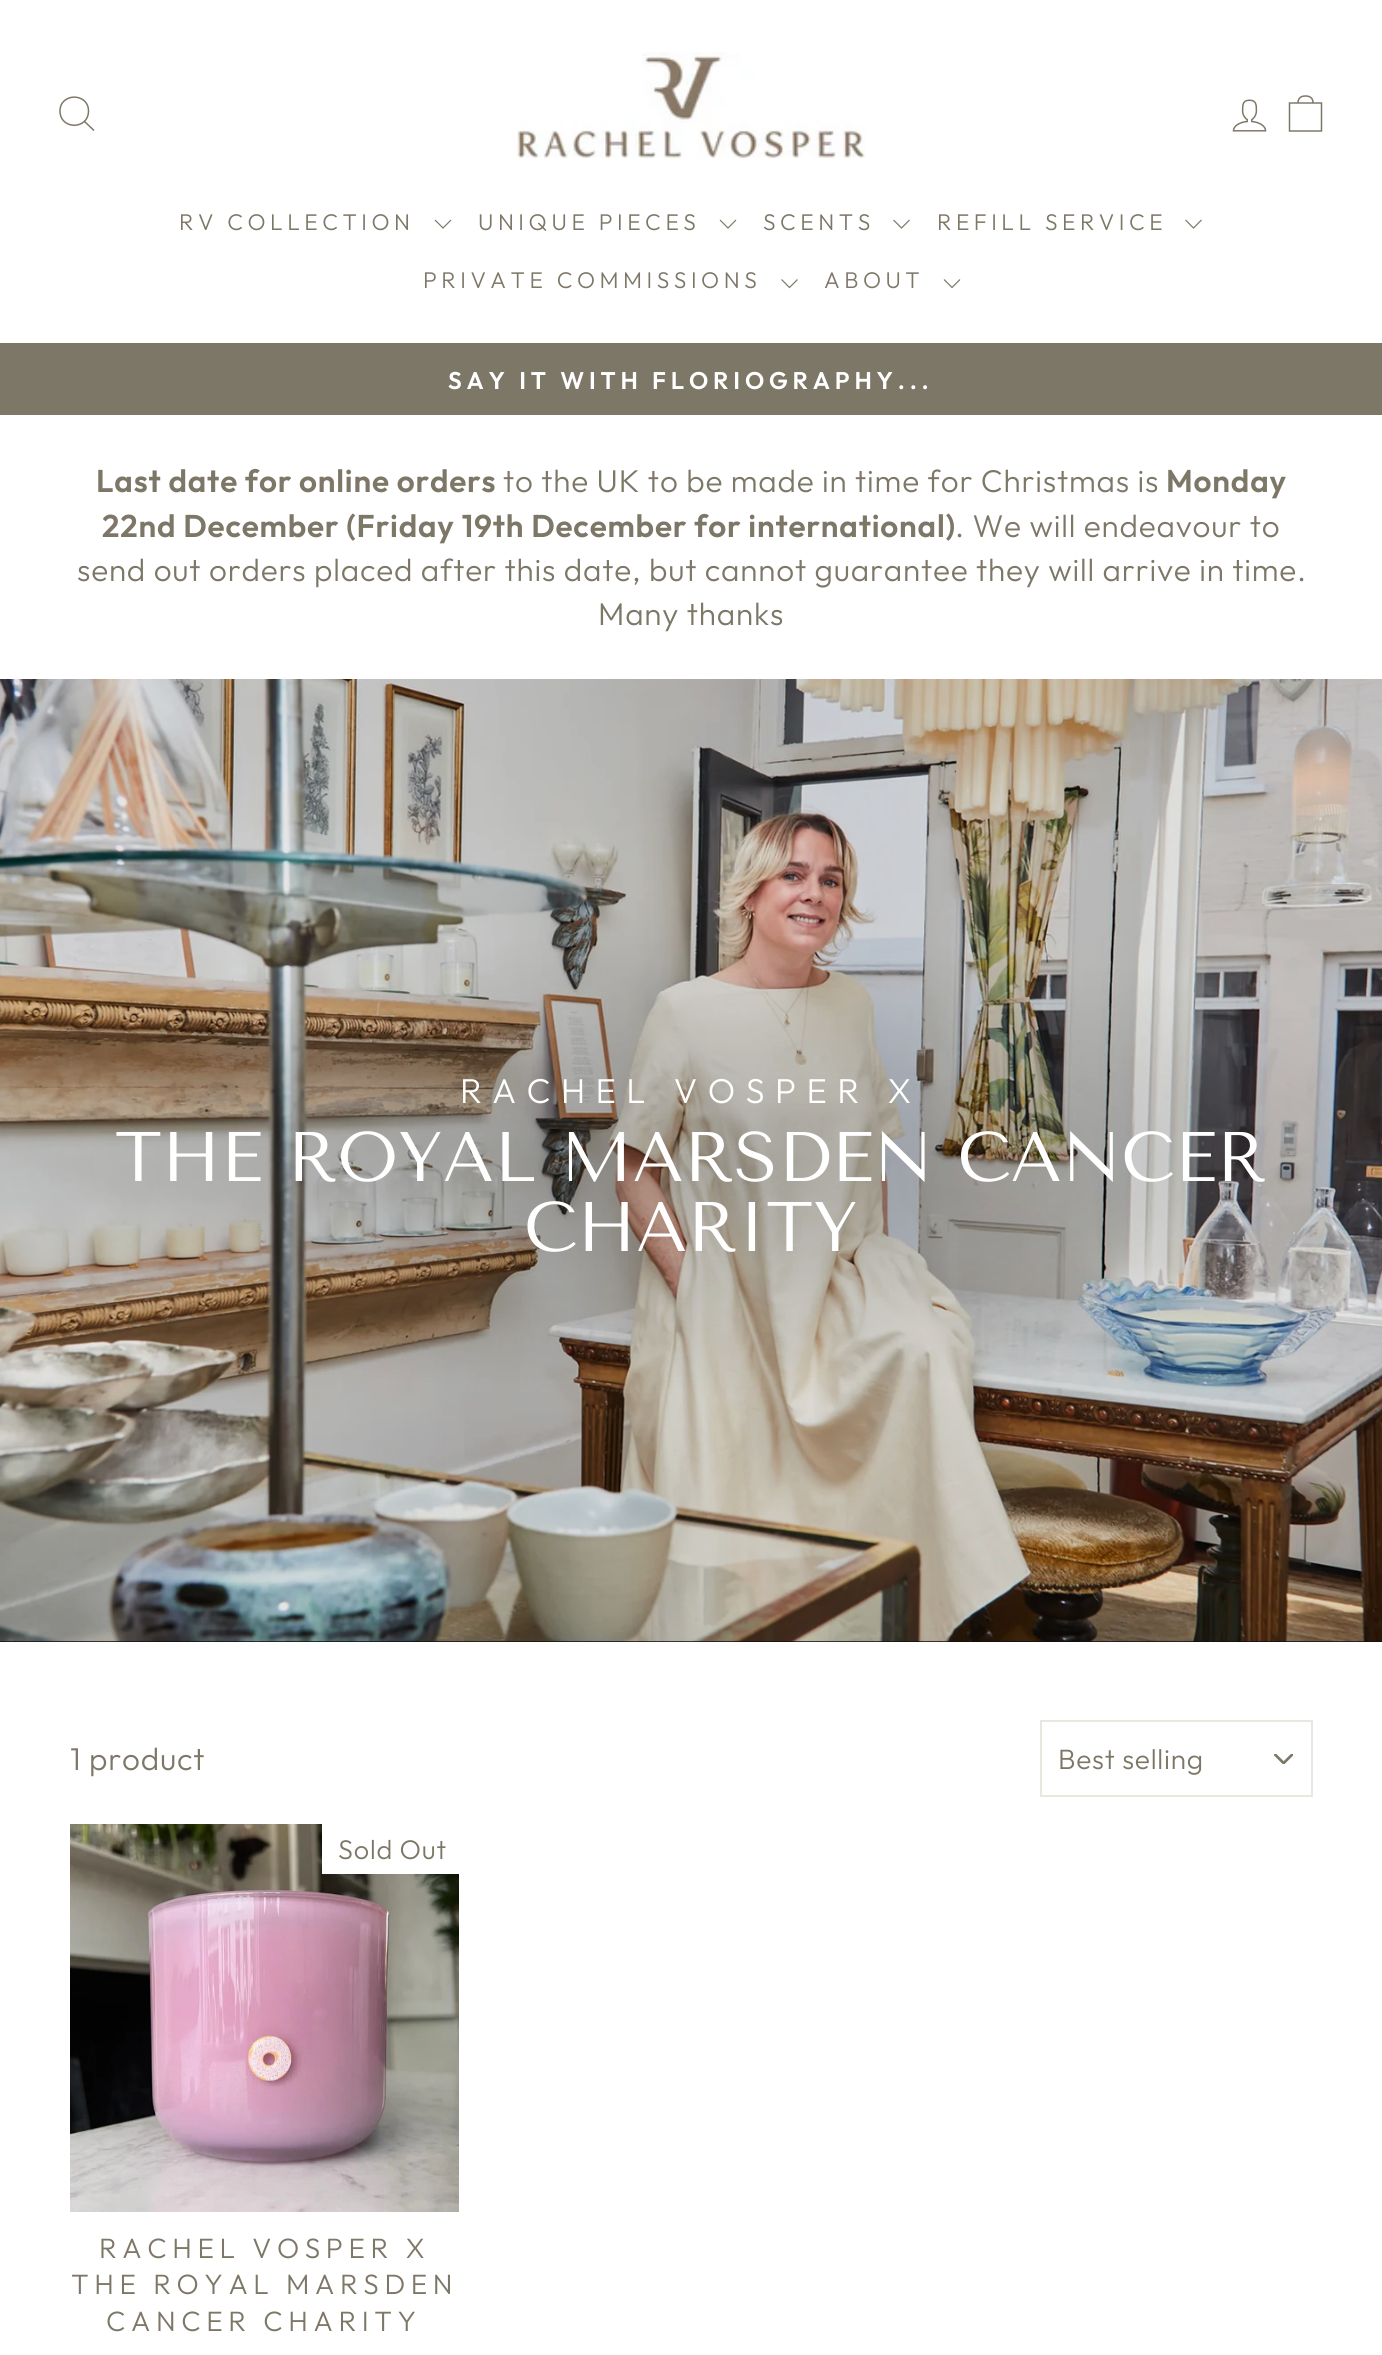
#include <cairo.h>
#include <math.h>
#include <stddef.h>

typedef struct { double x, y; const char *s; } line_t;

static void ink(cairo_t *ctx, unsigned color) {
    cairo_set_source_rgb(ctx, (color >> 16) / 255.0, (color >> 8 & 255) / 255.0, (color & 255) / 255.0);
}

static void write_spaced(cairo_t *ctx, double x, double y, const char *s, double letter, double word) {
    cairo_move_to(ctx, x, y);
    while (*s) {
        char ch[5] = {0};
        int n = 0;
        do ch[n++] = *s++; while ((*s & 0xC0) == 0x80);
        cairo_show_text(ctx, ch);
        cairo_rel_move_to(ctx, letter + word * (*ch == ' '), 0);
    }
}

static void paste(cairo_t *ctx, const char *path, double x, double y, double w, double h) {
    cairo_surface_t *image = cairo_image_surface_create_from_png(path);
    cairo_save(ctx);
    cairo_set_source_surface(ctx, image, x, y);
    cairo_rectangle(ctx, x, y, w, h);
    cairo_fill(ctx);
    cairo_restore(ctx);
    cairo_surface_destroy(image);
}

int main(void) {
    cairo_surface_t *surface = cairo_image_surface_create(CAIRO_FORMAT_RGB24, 1382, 2355);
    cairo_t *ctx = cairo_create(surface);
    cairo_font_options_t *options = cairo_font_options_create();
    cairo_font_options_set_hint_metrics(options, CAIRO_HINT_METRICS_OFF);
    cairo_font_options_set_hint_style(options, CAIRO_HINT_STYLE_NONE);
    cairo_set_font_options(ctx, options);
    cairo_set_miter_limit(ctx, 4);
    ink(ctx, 0xFFFFFF);
    cairo_paint(ctx);
    cairo_new_path(ctx);
    cairo_move_to(ctx, 88.5, 111);
    cairo_curve_to(ctx, 88.5, 130, 60, 130, 60, 111);
    cairo_curve_to(ctx, 60, 92.5, 88.5, 92.5, 88.5, 111);
    cairo_close_path(ctx);
    cairo_move_to(ctx, 94, 130.5);
    cairo_line_to(ctx, 84.5, 121.5);
    ink(ctx, 0x7D7767);
    cairo_set_line_width(ctx, 1.5);
    cairo_stroke(ctx);
    paste(ctx, "media/1.png", 517, 52, 349, 106);
    paste(ctx, "media/2.png", 1232, 99, 35, 33);
    cairo_new_path(ctx);
    cairo_move_to(ctx, 1289.5, 103);
    cairo_line_to(ctx, 1321.5, 103);
    cairo_line_to(ctx, 1321.5, 131);
    cairo_line_to(ctx, 1289.5, 131);
    cairo_close_path(ctx);
    cairo_move_to(ctx, 1298, 103);
    cairo_curve_to(ctx, 1298, 97.5, 1301.5, 96, 1305.5, 96);
    cairo_curve_to(ctx, 1309.5, 96, 1313, 97.5, 1313, 103);
    cairo_stroke(ctx);
    cairo_select_font_face(ctx, "Outfit Light", CAIRO_FONT_SLANT_NORMAL, CAIRO_FONT_WEIGHT_NORMAL);
    cairo_set_font_size(ctx, 22.75);
    write_spaced(ctx, 179, 230, "RV COLLECTION", 4.5, 0);
    cairo_new_path(ctx);
    cairo_move_to(ctx, 435, 220);
    cairo_line_to(ctx, 443, 228);
    cairo_line_to(ctx, 451, 220);
    cairo_set_line_width(ctx, 1.2);
    cairo_stroke(ctx);
    write_spaced(ctx, 478, 230, "UNIQUE PIECES", 4.5, 0);
    cairo_new_path(ctx);
    cairo_move_to(ctx, 720, 220);
    cairo_line_to(ctx, 728, 228);
    cairo_line_to(ctx, 736, 220);
    cairo_stroke(ctx);
    write_spaced(ctx, 763, 230, "SCENTS", 4.5, 0);
    cairo_new_path(ctx);
    cairo_move_to(ctx, 893.5, 220);
    cairo_line_to(ctx, 901.5, 228);
    cairo_line_to(ctx, 909.5, 220);
    cairo_stroke(ctx);
    write_spaced(ctx, 937, 230, "REFILL SERVICE", 4.5, 0);
    cairo_new_path(ctx);
    cairo_move_to(ctx, 1185.5, 220);
    cairo_line_to(ctx, 1193.5, 228);
    cairo_line_to(ctx, 1201.5, 220);
    cairo_stroke(ctx);
    write_spaced(ctx, 423, 288, "PRIVATE COMMISSIONS", 4.5, 0);
    cairo_new_path(ctx);
    cairo_move_to(ctx, 781.5, 279.5);
    cairo_line_to(ctx, 789.5, 287.5);
    cairo_line_to(ctx, 797.5, 279.5);
    cairo_stroke(ctx);
    write_spaced(ctx, 824, 288, "ABOUT", 4.5, 0);
    cairo_new_path(ctx);
    cairo_move_to(ctx, 944, 279.5);
    cairo_line_to(ctx, 952, 287.5);
    cairo_line_to(ctx, 960, 279.5);
    cairo_stroke(ctx);
    cairo_rectangle(ctx, 0, 343, 1382, 72);
    cairo_fill(ctx);
    cairo_select_font_face(ctx, "Outfit SemiBold", CAIRO_FONT_SLANT_NORMAL, CAIRO_FONT_WEIGHT_NORMAL);
    cairo_set_font_size(ctx, 24.1);
    ink(ctx, 0xFFFFFF);
    write_spaced(ctx, 448, 389, "SAY IT WITH FLORIOGRAPHY...", 4.8, 0);
    cairo_set_font_size(ctx, 31.5);
    ink(ctx, 0x7D7767);
    write_spaced(ctx, 96, 492, "Last date for online orders", 0.8, 0);
    cairo_select_font_face(ctx, "Outfit Light", CAIRO_FONT_SLANT_NORMAL, CAIRO_FONT_WEIGHT_NORMAL);
    write_spaced(ctx, 503, 492, "to the UK to be made in time for Christmas is", 0.8, 0);
    cairo_select_font_face(ctx, "Outfit SemiBold", CAIRO_FONT_SLANT_NORMAL, CAIRO_FONT_WEIGHT_NORMAL);
    write_spaced(ctx, 1166, 492, "Monday", 0.8, 0);
    write_spaced(ctx, 102, 537, "22nd December (Friday 19th December for international)", 0.8, 0);
    cairo_select_font_face(ctx, "Outfit Light", CAIRO_FONT_SLANT_NORMAL, CAIRO_FONT_WEIGHT_NORMAL);
    {
        static const line_t items[] = {
            {955, 537, ". We will endeavour to"},
            {77, 581, "send out orders placed after this date, but cannot guarantee they will arrive in time."},
            {598, 625, "Many thanks"},
        };
        for (size_t i = 0; i < sizeof items / sizeof *items; i++) {
            write_spaced(ctx, items[i].x, items[i].y, items[i].s, 0.8, 0);
        }
    }
    ink(ctx, 0x0E0E0E);
    cairo_rectangle(ctx, 0, 1641, 1382, 1);
    cairo_fill(ctx);
    paste(ctx, "media/3.png", 0, 679, 1382, 963);
    cairo_set_font_size(ctx, 34.6);
    ink(ctx, 0xFFFFFF);
    write_spaced(ctx, 460, 1103, "RACHEL VOSPER X", 10.4, 0);
    cairo_select_font_face(ctx, "Tenor Sans", CAIRO_FONT_SLANT_NORMAL, CAIRO_FONT_WEIGHT_NORMAL);
    cairo_set_font_size(ctx, 70);
    cairo_move_to(ctx, 115, 1181);
    cairo_show_text(ctx, "THE ROYAL MARSDEN CANCER");
    cairo_move_to(ctx, 524, 1251);
    cairo_show_text(ctx, "CHARITY");
    cairo_select_font_face(ctx, "Outfit Light", CAIRO_FONT_SLANT_NORMAL, CAIRO_FONT_WEIGHT_NORMAL);
    cairo_set_font_size(ctx, 31.5);
    ink(ctx, 0x7D7767);
    write_spaced(ctx, 70, 1770, "1 product", 0.8, 0);
    paste(ctx, "media/4.png", 1274, 1754, 19, 10);
    cairo_rectangle(ctx, 1041, 1721, 271, 75);
    ink(ctx, 0xE8E8E1);
    cairo_set_line_width(ctx, 2);
    cairo_stroke(ctx);
    cairo_set_font_size(ctx, 28);
    ink(ctx, 0x7D7767);
    write_spaced(ctx, 1058, 1769, "Best selling", 0.75, 0);
    paste(ctx, "media/5.png", 70, 1824, 389, 388);
    ink(ctx, 0xFFFFFF);
    cairo_rectangle(ctx, 322, 1824, 137, 50);
    cairo_fill(ctx);
    cairo_set_font_size(ctx, 27);
    ink(ctx, 0x7D7767);
    write_spaced(ctx, 338, 1859, "Sold Out", 0.8, 0);
    cairo_set_font_size(ctx, 28);
    {
        static const line_t items[] = {
            {99, 2258, "RACHEL VOSPER X"},
            {71, 2294, "THE ROYAL MARSDEN"},
            {106, 2331, "CANCER CHARITY"},
        };
        for (size_t i = 0; i < sizeof items / sizeof *items; i++) {
            write_spaced(ctx, items[i].x, items[i].y, items[i].s, 5.6, 0);
        }
    }
    cairo_surface_write_to_png(surface, "image.png");
    cairo_font_options_destroy(options);
    cairo_destroy(ctx);
    cairo_surface_destroy(surface);
    return 0;
}
